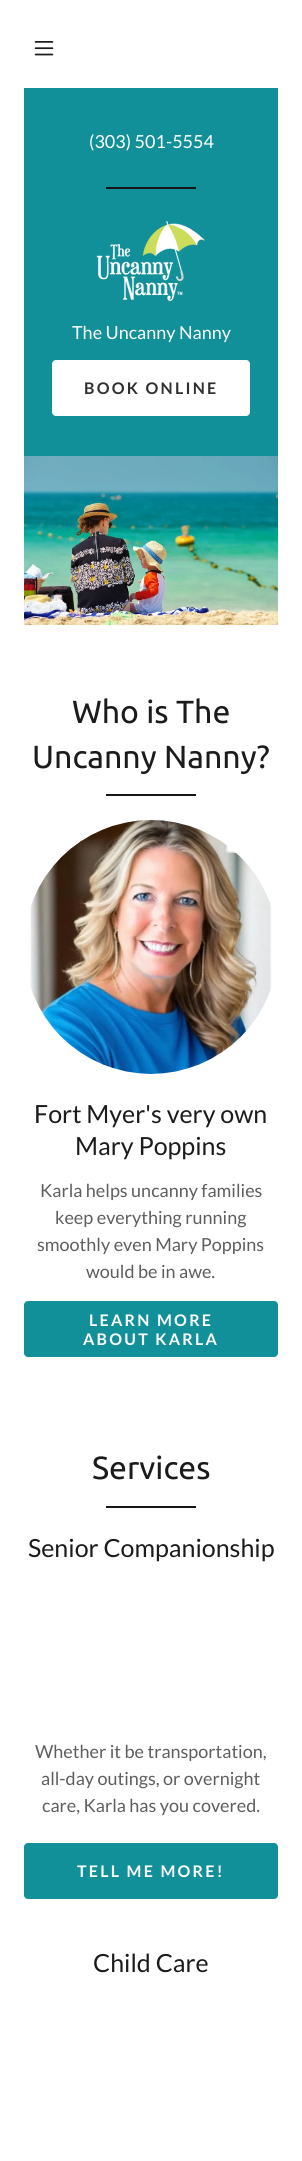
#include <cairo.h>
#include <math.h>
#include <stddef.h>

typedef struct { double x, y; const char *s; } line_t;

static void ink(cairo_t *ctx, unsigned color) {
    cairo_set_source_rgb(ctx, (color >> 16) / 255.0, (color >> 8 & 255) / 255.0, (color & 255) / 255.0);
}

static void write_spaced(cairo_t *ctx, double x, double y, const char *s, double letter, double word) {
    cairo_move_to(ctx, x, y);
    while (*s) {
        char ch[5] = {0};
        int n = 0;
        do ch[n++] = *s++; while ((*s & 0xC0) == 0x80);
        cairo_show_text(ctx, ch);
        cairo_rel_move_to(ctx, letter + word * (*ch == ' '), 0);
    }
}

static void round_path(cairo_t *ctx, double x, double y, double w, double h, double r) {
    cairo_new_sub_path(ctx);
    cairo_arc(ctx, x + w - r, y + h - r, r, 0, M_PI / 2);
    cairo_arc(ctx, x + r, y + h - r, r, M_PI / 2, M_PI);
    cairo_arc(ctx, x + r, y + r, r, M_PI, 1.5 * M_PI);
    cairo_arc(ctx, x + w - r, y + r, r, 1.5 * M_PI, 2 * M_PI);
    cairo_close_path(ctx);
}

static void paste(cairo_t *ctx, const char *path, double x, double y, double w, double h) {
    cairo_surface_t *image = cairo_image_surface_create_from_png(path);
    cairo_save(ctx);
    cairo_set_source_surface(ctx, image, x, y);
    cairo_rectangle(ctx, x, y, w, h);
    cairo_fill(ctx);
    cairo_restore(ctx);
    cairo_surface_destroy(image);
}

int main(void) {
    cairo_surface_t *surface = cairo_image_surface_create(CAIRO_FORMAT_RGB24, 302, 2161);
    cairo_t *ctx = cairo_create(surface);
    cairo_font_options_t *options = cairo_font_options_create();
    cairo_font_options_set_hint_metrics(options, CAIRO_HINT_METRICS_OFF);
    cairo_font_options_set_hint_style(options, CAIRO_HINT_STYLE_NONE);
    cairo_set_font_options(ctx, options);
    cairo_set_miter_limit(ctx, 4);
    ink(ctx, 0xFFFFFF);
    cairo_paint(ctx);
    paste(ctx, "media/1.png", 34, 41, 20, 15);
    ink(ctx, 0x12909A);
    cairo_rectangle(ctx, 24, 88, 254, 368);
    cairo_fill(ctx);
    cairo_select_font_face(ctx, "Lato", CAIRO_FONT_SLANT_NORMAL, CAIRO_FONT_WEIGHT_NORMAL);
    cairo_set_font_size(ctx, 18);
    ink(ctx, 0xFFFFFF);
    cairo_move_to(ctx, 89, 148);
    cairo_show_text(ctx, "(303) 501-5554");
    ink(ctx, 0x161616);
    cairo_rectangle(ctx, 106, 187, 90, 2);
    cairo_fill(ctx);
    paste(ctx, "media/2.png", 96, 221, 109, 80);
    ink(ctx, 0xFFFFFF);
    cairo_move_to(ctx, 72, 339);
    cairo_show_text(ctx, "The Uncanny Nanny");
    round_path(ctx, 52, 360, 198, 56, 4);
    cairo_fill(ctx);
    cairo_select_font_face(ctx, "Lato", CAIRO_FONT_SLANT_NORMAL, CAIRO_FONT_WEIGHT_BOLD);
    cairo_set_font_size(ctx, 16);
    ink(ctx, 0x303030);
    write_spaced(ctx, 84, 394, "BOOK ONLINE", 2.25, 0);
    paste(ctx, "media/3.png", 24, 456, 254, 169);
    cairo_select_font_face(ctx, "Ubuntu", CAIRO_FONT_SLANT_NORMAL, CAIRO_FONT_WEIGHT_NORMAL);
    cairo_set_font_size(ctx, 32);
    ink(ctx, 0x1B1B1B);
    cairo_move_to(ctx, 72, 723);
    cairo_show_text(ctx, "Who is The");
    cairo_move_to(ctx, 32, 768);
    cairo_show_text(ctx, "Uncanny Nanny?");
    ink(ctx, 0x161616);
    cairo_rectangle(ctx, 106, 794, 90, 2);
    cairo_fill(ctx);
    paste(ctx, "media/4.png", 29, 820, 243, 254);
    cairo_select_font_face(ctx, "Lato", CAIRO_FONT_SLANT_NORMAL, CAIRO_FONT_WEIGHT_NORMAL);
    cairo_set_font_size(ctx, 25);
    ink(ctx, 0x1B1B1B);
    cairo_move_to(ctx, 34, 1123);
    cairo_show_text(ctx, "Fort Myer's very own");
    cairo_move_to(ctx, 75, 1155);
    cairo_show_text(ctx, "Mary Poppins");
    cairo_set_font_size(ctx, 18);
    ink(ctx, 0x5E5E5E);
    {
        static const line_t items[] = {
            {40, 1197, "Karla helps uncanny families"},
            {55, 1224, "keep everything running"},
            {37, 1251, "smoothly even Mary Poppins"},
            {86, 1278, "would be in awe."},
        };
        for (size_t i = 0; i < sizeof items / sizeof *items; i++) {
            cairo_move_to(ctx, items[i].x, items[i].y);
            cairo_show_text(ctx, items[i].s);
        }
    }
    ink(ctx, 0x12909A);
    round_path(ctx, 24, 1301, 254, 56, 4);
    cairo_fill(ctx);
    cairo_select_font_face(ctx, "Lato", CAIRO_FONT_SLANT_NORMAL, CAIRO_FONT_WEIGHT_BOLD);
    cairo_set_font_size(ctx, 16);
    ink(ctx, 0xFFFFFF);
    write_spaced(ctx, 89, 1326, "LEARN MORE", 2.25, 0);
    write_spaced(ctx, 83, 1345, "ABOUT KARLA", 2.25, 0);
    cairo_select_font_face(ctx, "Ubuntu", CAIRO_FONT_SLANT_NORMAL, CAIRO_FONT_WEIGHT_NORMAL);
    cairo_set_font_size(ctx, 32);
    ink(ctx, 0x1B1B1B);
    cairo_move_to(ctx, 92, 1479);
    cairo_show_text(ctx, "Services");
    ink(ctx, 0x161616);
    cairo_rectangle(ctx, 106, 1506, 90, 2);
    cairo_fill(ctx);
    cairo_select_font_face(ctx, "Lato", CAIRO_FONT_SLANT_NORMAL, CAIRO_FONT_WEIGHT_NORMAL);
    cairo_set_font_size(ctx, 25);
    ink(ctx, 0x1B1B1B);
    cairo_move_to(ctx, 28, 1557);
    cairo_show_text(ctx, "Senior Companionship");
    cairo_set_font_size(ctx, 18);
    ink(ctx, 0x5E5E5E);
    {
        static const line_t items[] = {
            {35, 1758, "Whether it be transportation,"},
            {41, 1785, "all-day outings, or overnight"},
            {42, 1812, "care, Karla has you covered."},
        };
        for (size_t i = 0; i < sizeof items / sizeof *items; i++) {
            cairo_move_to(ctx, items[i].x, items[i].y);
            cairo_show_text(ctx, items[i].s);
        }
    }
    ink(ctx, 0x12909A);
    round_path(ctx, 24, 1843, 254, 56, 4);
    cairo_fill(ctx);
    cairo_select_font_face(ctx, "Lato", CAIRO_FONT_SLANT_NORMAL, CAIRO_FONT_WEIGHT_BOLD);
    cairo_set_font_size(ctx, 16);
    ink(ctx, 0xFFFFFF);
    write_spaced(ctx, 77, 1877, "TELL ME MORE!", 2.25, 0);
    cairo_select_font_face(ctx, "Lato", CAIRO_FONT_SLANT_NORMAL, CAIRO_FONT_WEIGHT_NORMAL);
    cairo_set_font_size(ctx, 25);
    ink(ctx, 0x1B1B1B);
    cairo_move_to(ctx, 93, 1972);
    cairo_show_text(ctx, "Child Care");
    cairo_surface_write_to_png(surface, "image.png");
    cairo_font_options_destroy(options);
    cairo_destroy(ctx);
    cairo_surface_destroy(surface);
    return 0;
}
